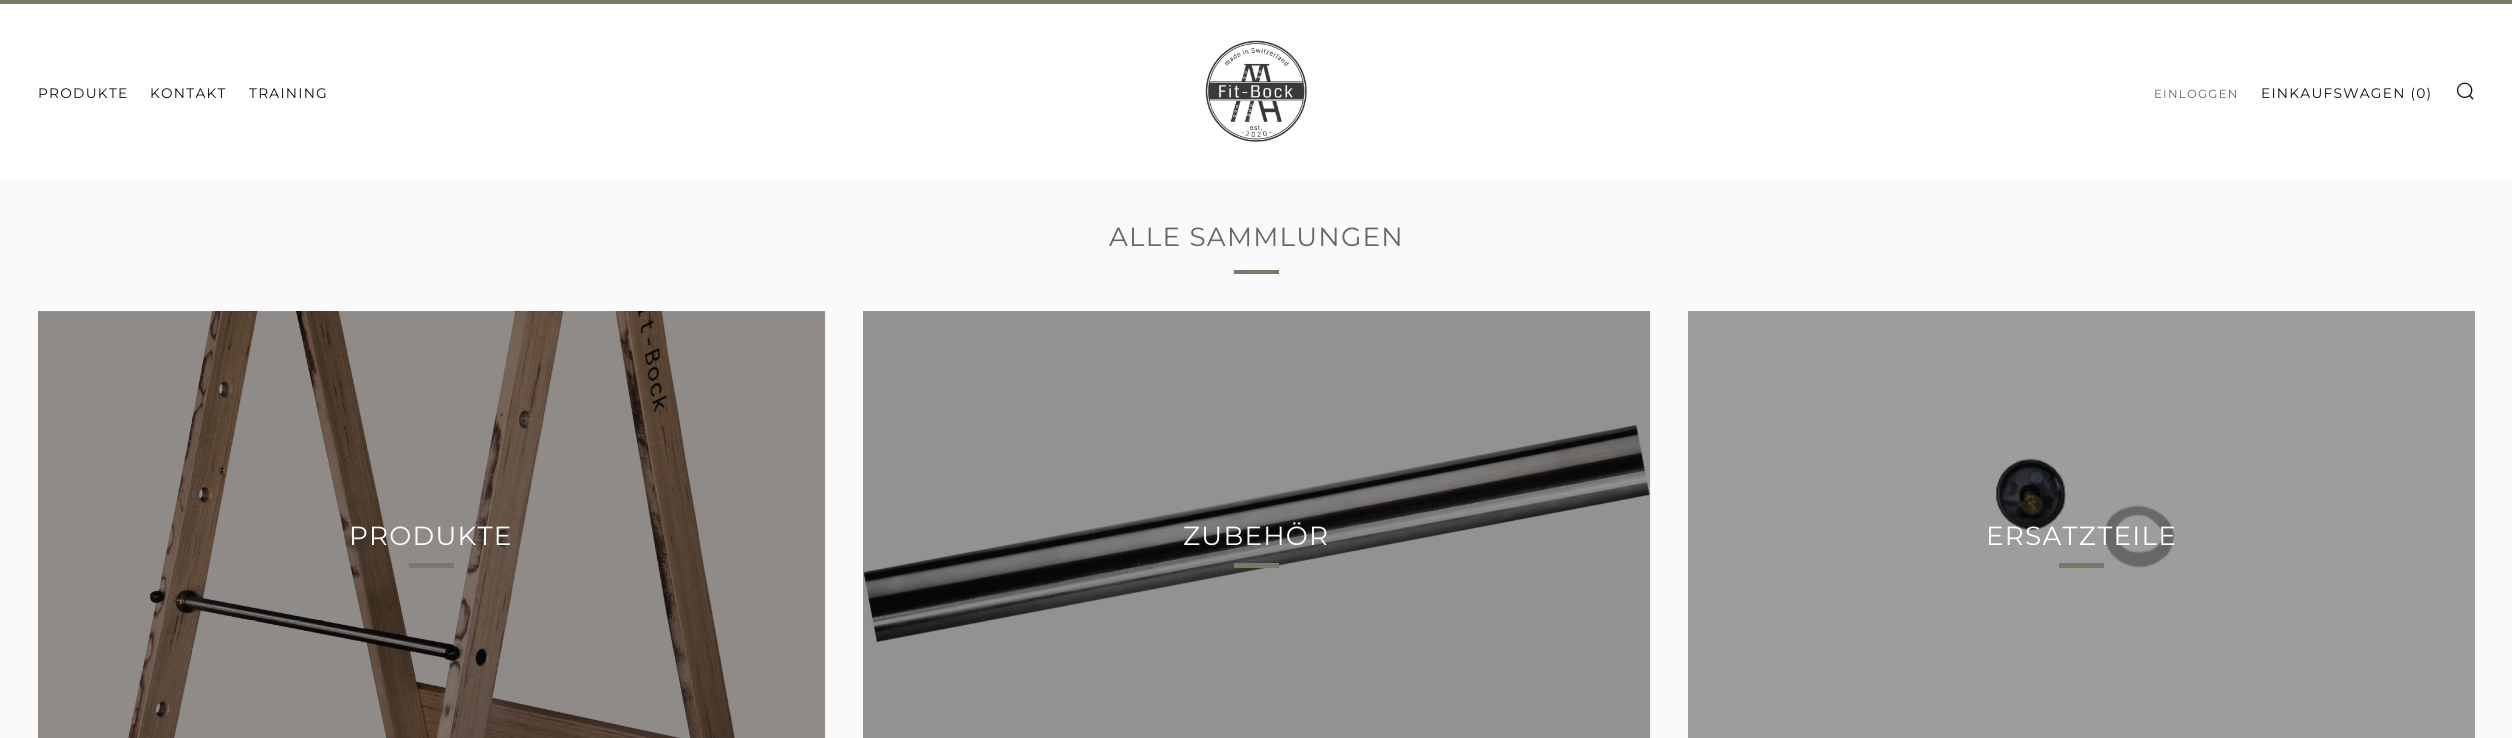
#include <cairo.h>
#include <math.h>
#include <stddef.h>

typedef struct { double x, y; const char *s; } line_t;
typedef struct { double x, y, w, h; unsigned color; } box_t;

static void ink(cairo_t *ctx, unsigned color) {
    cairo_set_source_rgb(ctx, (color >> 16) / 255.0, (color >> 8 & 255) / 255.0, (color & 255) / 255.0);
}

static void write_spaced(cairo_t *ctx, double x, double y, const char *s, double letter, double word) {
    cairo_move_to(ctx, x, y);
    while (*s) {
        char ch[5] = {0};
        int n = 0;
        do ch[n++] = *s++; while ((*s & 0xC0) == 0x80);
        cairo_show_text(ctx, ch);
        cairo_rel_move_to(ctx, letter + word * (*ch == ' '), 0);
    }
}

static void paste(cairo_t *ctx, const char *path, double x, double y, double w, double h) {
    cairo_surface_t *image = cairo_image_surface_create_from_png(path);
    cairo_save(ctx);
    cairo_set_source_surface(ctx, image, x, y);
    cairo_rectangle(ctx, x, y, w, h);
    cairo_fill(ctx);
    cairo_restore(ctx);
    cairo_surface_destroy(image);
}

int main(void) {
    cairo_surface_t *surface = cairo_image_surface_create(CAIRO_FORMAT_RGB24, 2512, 738);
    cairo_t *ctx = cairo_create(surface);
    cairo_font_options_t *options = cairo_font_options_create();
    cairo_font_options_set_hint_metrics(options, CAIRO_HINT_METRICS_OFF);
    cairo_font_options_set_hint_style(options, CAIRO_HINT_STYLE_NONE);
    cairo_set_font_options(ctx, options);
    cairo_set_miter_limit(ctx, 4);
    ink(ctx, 0xFAFAFA);
    cairo_paint(ctx);
    {
        static const box_t items[] = {
            {1688, 311, 787, 427, 0x9D9D9D},
            {863, 311, 787, 427, 0x9D9D9D},
            {38, 311, 787, 427, 0x9D9D9D},
            {0, 0, 2512, 4, 0x787968},
            {0, 4, 2512, 175, 0xFFFFFF},
        };
        for (size_t i = 0; i < sizeof items / sizeof *items; i++) {
            ink(ctx, items[i].color);
            cairo_rectangle(ctx, items[i].x, items[i].y, items[i].w, items[i].h);
            cairo_fill(ctx);
        }
    }
    paste(ctx, "media/1.png", 1205, 40, 102, 102);
    cairo_select_font_face(ctx, "Montserrat Thin", CAIRO_FONT_SLANT_NORMAL, CAIRO_FONT_WEIGHT_NORMAL);
    cairo_set_font_size(ctx, 13.75);
    ink(ctx, 0x111111);
    {
        static const line_t items[] = {
            {38, 98, "PRODUKTE"},
            {150, 98, "KONTAKT"},
            {249, 98, "TRAINING"},
        };
        for (size_t i = 0; i < sizeof items / sizeof *items; i++) {
            write_spaced(ctx, items[i].x, items[i].y, items[i].s, 1.25, 0);
        }
    }
    cairo_set_font_size(ctx, 11.75);
    ink(ctx, 0x666666);
    write_spaced(ctx, 2154, 98, "EINLOGGEN", 1.25, 0);
    cairo_set_font_size(ctx, 13.75);
    ink(ctx, 0x111111);
    write_spaced(ctx, 2261, 98, "EINKAUFSWAGEN (0)", 1.25, 0);
    paste(ctx, "media/2.png", 2456, 82, 18, 18);
    cairo_set_font_size(ctx, 26.25);
    ink(ctx, 0x666666);
    write_spaced(ctx, 1109, 246, "ALLE SAMMLUNGEN", 1.25, 0);
    ink(ctx, 0x787968);
    cairo_rectangle(ctx, 1234, 270, 45, 4);
    cairo_fill(ctx);
    paste(ctx, "media/3.png", 38, 311, 788, 427);
    paste(ctx, "media/4.png", 128, 311, 607, 427);
    ink(ctx, 0xFFFFFF);
    write_spaced(ctx, 349, 545, "PRODUKTE", 1.25, 0);
    ink(ctx, 0x787968);
    cairo_rectangle(ctx, 409, 563, 45, 5);
    cairo_fill(ctx);
    paste(ctx, "media/5.png", 863, 311, 788, 427);
    paste(ctx, "media/6.png", 863, 425, 787, 218);
    ink(ctx, 0xFFFFFF);
    write_spaced(ctx, 1183, 545, "ZUBEHÖR", 1.25, 0);
    ink(ctx, 0x787968);
    cairo_rectangle(ctx, 1234, 563, 45, 5);
    cairo_fill(ctx);
    paste(ctx, "media/7.png", 1996, 458, 179, 110);
    ink(ctx, 0xFFFFFF);
    write_spaced(ctx, 1986, 545, "ERSATZTEILE", 1.25, 0);
    ink(ctx, 0x787968);
    cairo_rectangle(ctx, 2059, 563, 45, 5);
    cairo_fill(ctx);
    cairo_surface_write_to_png(surface, "image.png");
    cairo_font_options_destroy(options);
    cairo_destroy(ctx);
    cairo_surface_destroy(surface);
    return 0;
}
